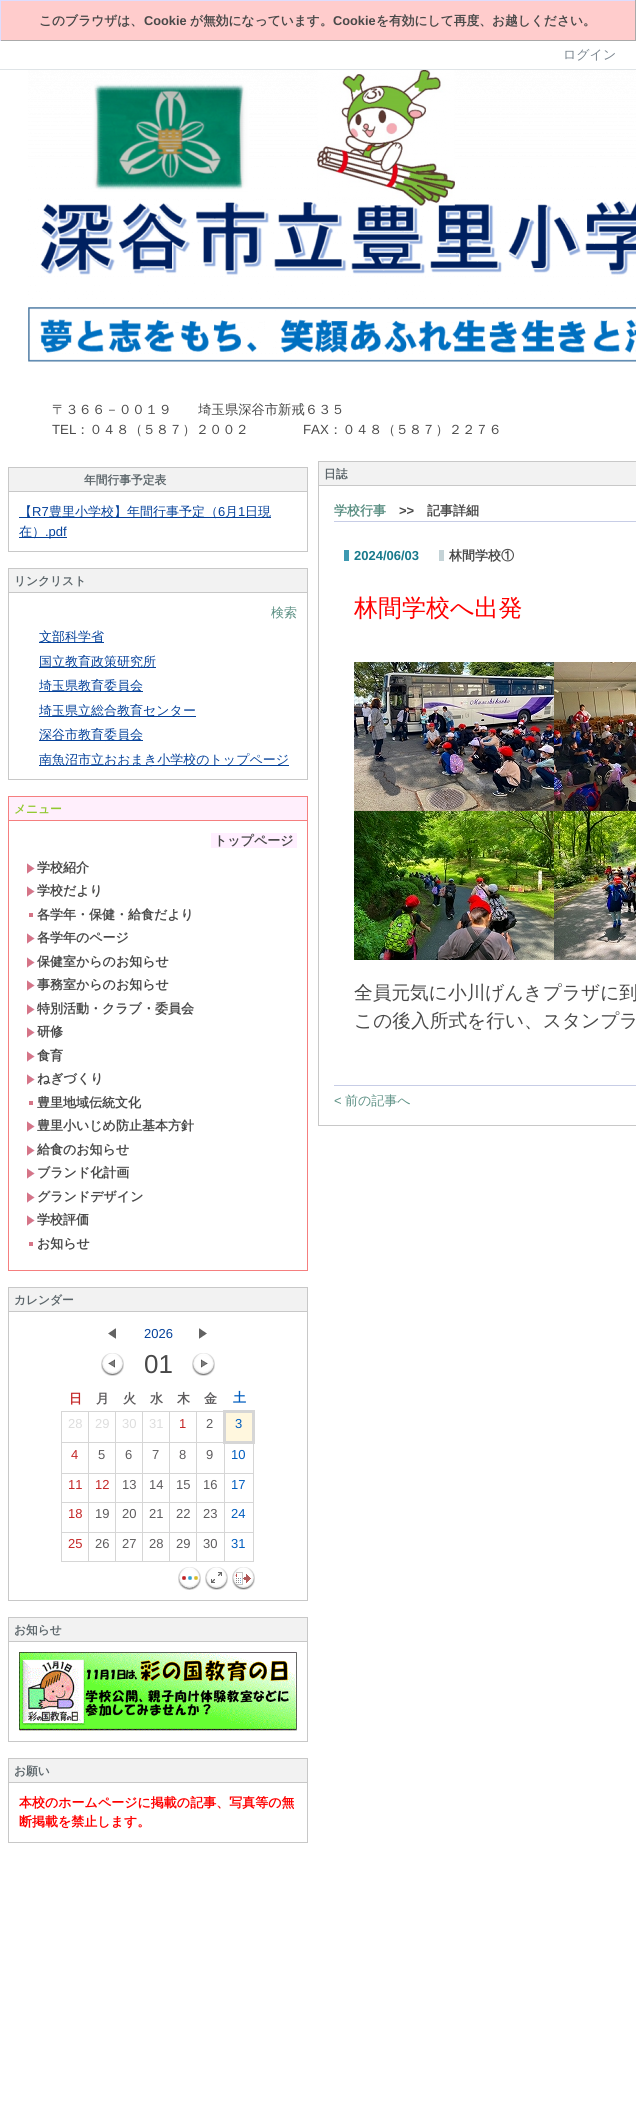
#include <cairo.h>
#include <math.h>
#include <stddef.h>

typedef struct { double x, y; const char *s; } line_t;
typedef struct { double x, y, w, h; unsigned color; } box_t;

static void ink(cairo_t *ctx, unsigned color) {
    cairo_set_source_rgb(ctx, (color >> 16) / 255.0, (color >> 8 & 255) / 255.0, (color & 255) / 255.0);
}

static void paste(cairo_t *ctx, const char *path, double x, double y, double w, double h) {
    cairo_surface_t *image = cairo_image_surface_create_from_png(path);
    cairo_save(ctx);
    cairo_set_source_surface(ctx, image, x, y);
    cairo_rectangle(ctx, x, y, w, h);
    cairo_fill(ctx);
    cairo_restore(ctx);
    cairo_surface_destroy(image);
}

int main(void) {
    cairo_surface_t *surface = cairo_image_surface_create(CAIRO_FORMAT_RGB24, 636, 2106);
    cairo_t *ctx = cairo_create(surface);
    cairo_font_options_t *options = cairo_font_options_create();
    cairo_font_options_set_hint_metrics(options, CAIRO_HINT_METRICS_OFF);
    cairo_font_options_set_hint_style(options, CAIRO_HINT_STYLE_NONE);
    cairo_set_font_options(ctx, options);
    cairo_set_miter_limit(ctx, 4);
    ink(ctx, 0xFFCCCC);
    cairo_paint(ctx);
    {
        static const box_t items[] = {
            {0, 0, 636, 1, 0xDDDDFF},
            {635, 0, 1, 41, 0xAAAAAA},
            {0, 40, 636, 1, 0xAAAAAA},
            {0, 0, 1, 41, 0xDDDDFF},
        };
        for (size_t i = 0; i < sizeof items / sizeof *items; i++) {
            ink(ctx, items[i].color);
            cairo_rectangle(ctx, items[i].x, items[i].y, items[i].w, items[i].h);
            cairo_fill(ctx);
        }
    }
    cairo_select_font_face(ctx, "WenQuanYi Zen Hei", CAIRO_FONT_SLANT_NORMAL, CAIRO_FONT_WEIGHT_BOLD);
    cairo_set_font_size(ctx, 12.75);
    ink(ctx, 0x494949);
    cairo_move_to(ctx, 39, 25);
    cairo_show_text(ctx, "このブラウザは、");
    cairo_select_font_face(ctx, "Liberation Sans", CAIRO_FONT_SLANT_NORMAL, CAIRO_FONT_WEIGHT_BOLD);
    cairo_move_to(ctx, 144, 25);
    cairo_show_text(ctx, "Cookie");
    cairo_select_font_face(ctx, "WenQuanYi Zen Hei", CAIRO_FONT_SLANT_NORMAL, CAIRO_FONT_WEIGHT_BOLD);
    cairo_move_to(ctx, 190, 25);
    cairo_show_text(ctx, "が無効になっています。");
    cairo_select_font_face(ctx, "Liberation Sans", CAIRO_FONT_SLANT_NORMAL, CAIRO_FONT_WEIGHT_BOLD);
    cairo_move_to(ctx, 333, 25);
    cairo_show_text(ctx, "Cookie");
    cairo_select_font_face(ctx, "WenQuanYi Zen Hei", CAIRO_FONT_SLANT_NORMAL, CAIRO_FONT_WEIGHT_BOLD);
    cairo_move_to(ctx, 376, 25);
    cairo_show_text(ctx, "を有効にして再度、お越しください。");
    ink(ctx, 0xFFFFFF);
    cairo_rectangle(ctx, 0, 41, 636, 28);
    cairo_fill(ctx);
    ink(ctx, 0xDFE4E7);
    cairo_rectangle(ctx, 0, 69, 636, 1);
    cairo_fill(ctx);
    cairo_select_font_face(ctx, "WenQuanYi Zen Hei Medium", CAIRO_FONT_SLANT_NORMAL, CAIRO_FONT_WEIGHT_NORMAL);
    cairo_set_font_size(ctx, 13);
    ink(ctx, 0x7A858F);
    cairo_move_to(ctx, 563, 59);
    cairo_show_text(ctx, "ログイン");
    ink(ctx, 0xFFFFFF);
    cairo_rectangle(ctx, 0, 70, 636, 389);
    cairo_fill(ctx);
    paste(ctx, "media/1.png", 28, 70, 608, 292);
    cairo_set_font_size(ctx, 13.3);
    ink(ctx, 0x494949);
    cairo_move_to(ctx, 52, 414);
    cairo_show_text(ctx, "〒３６６－００１９　　埼玉県深谷市新戒６３５");
    cairo_select_font_face(ctx, "Liberation Sans", CAIRO_FONT_SLANT_NORMAL, CAIRO_FONT_WEIGHT_NORMAL);
    cairo_move_to(ctx, 52, 434);
    cairo_show_text(ctx, "TEL");
    cairo_select_font_face(ctx, "WenQuanYi Zen Hei Medium", CAIRO_FONT_SLANT_NORMAL, CAIRO_FONT_WEIGHT_NORMAL);
    cairo_move_to(ctx, 76, 434);
    cairo_show_text(ctx, "：０４８（５８７）２００２");
    cairo_select_font_face(ctx, "Liberation Sans", CAIRO_FONT_SLANT_NORMAL, CAIRO_FONT_WEIGHT_NORMAL);
    cairo_move_to(ctx, 303, 434);
    cairo_show_text(ctx, "FAX");
    cairo_select_font_face(ctx, "WenQuanYi Zen Hei Medium", CAIRO_FONT_SLANT_NORMAL, CAIRO_FONT_WEIGHT_NORMAL);
    cairo_move_to(ctx, 329, 434);
    cairo_show_text(ctx, "：０４８（５８７）２２７６");
    {
        static const box_t items[] = {
            {0, 459, 636, 1647, 0xFFFFFF},
            {8, 467, 300, 1, 0xC8C8C8},
            {307, 467, 1, 85, 0xC8C8C8},
            {8, 551, 300, 1, 0xC8C8C8},
            {8, 467, 1, 85, 0xC8C8C8},
            {9, 468, 298, 23, 0xF2F2F2},
            {8, 491, 300, 1, 0xC8C8C8},
        };
        for (size_t i = 0; i < sizeof items / sizeof *items; i++) {
            ink(ctx, items[i].color);
            cairo_rectangle(ctx, items[i].x, items[i].y, items[i].w, items[i].h);
            cairo_fill(ctx);
        }
    }
    cairo_select_font_face(ctx, "WenQuanYi Zen Hei", CAIRO_FONT_SLANT_NORMAL, CAIRO_FONT_WEIGHT_BOLD);
    cairo_set_font_size(ctx, 11.75);
    ink(ctx, 0x5C666B);
    cairo_move_to(ctx, 84, 484);
    cairo_show_text(ctx, "年間行事予定表");
    ink(ctx, 0x04419A);
    cairo_rectangle(ctx, 19, 517, 252, 1);
    cairo_fill(ctx);
    cairo_select_font_face(ctx, "WenQuanYi Zen Hei Medium", CAIRO_FONT_SLANT_NORMAL, CAIRO_FONT_WEIGHT_NORMAL);
    cairo_set_font_size(ctx, 13);
    cairo_move_to(ctx, 19, 516);
    cairo_show_text(ctx, "【");
    cairo_select_font_face(ctx, "Liberation Sans", CAIRO_FONT_SLANT_NORMAL, CAIRO_FONT_WEIGHT_NORMAL);
    cairo_move_to(ctx, 32, 516);
    cairo_show_text(ctx, "R7");
    cairo_select_font_face(ctx, "WenQuanYi Zen Hei Medium", CAIRO_FONT_SLANT_NORMAL, CAIRO_FONT_WEIGHT_NORMAL);
    cairo_move_to(ctx, 49, 516);
    cairo_show_text(ctx, "豊里小学校】年間行事予定（");
    cairo_select_font_face(ctx, "Liberation Sans", CAIRO_FONT_SLANT_NORMAL, CAIRO_FONT_WEIGHT_NORMAL);
    cairo_move_to(ctx, 218, 516);
    cairo_show_text(ctx, "6");
    cairo_select_font_face(ctx, "WenQuanYi Zen Hei Medium", CAIRO_FONT_SLANT_NORMAL, CAIRO_FONT_WEIGHT_NORMAL);
    cairo_move_to(ctx, 225, 516);
    cairo_show_text(ctx, "月");
    cairo_select_font_face(ctx, "Liberation Sans", CAIRO_FONT_SLANT_NORMAL, CAIRO_FONT_WEIGHT_NORMAL);
    cairo_move_to(ctx, 238, 516);
    cairo_show_text(ctx, "1");
    cairo_select_font_face(ctx, "WenQuanYi Zen Hei Medium", CAIRO_FONT_SLANT_NORMAL, CAIRO_FONT_WEIGHT_NORMAL);
    cairo_move_to(ctx, 245, 516);
    cairo_show_text(ctx, "日現");
    cairo_rectangle(ctx, 19, 537, 48, 1);
    cairo_fill(ctx);
    cairo_move_to(ctx, 19, 536);
    cairo_show_text(ctx, "在）");
    cairo_select_font_face(ctx, "Liberation Sans", CAIRO_FONT_SLANT_NORMAL, CAIRO_FONT_WEIGHT_NORMAL);
    cairo_move_to(ctx, 45, 536);
    cairo_show_text(ctx, ".pdf");
    {
        static const box_t items[] = {
            {8, 568, 300, 1, 0xC8C8C8},
            {307, 568, 1, 212, 0xC8C8C8},
            {8, 779, 300, 1, 0xC8C8C8},
            {8, 568, 1, 212, 0xC8C8C8},
            {9, 569, 298, 23, 0xF2F2F2},
            {8, 592, 300, 1, 0xC8C8C8},
        };
        for (size_t i = 0; i < sizeof items / sizeof *items; i++) {
            ink(ctx, items[i].color);
            cairo_rectangle(ctx, items[i].x, items[i].y, items[i].w, items[i].h);
            cairo_fill(ctx);
        }
    }
    cairo_select_font_face(ctx, "WenQuanYi Zen Hei", CAIRO_FONT_SLANT_NORMAL, CAIRO_FONT_WEIGHT_BOLD);
    cairo_set_font_size(ctx, 11.75);
    ink(ctx, 0x5C666B);
    cairo_move_to(ctx, 14, 585);
    cairo_show_text(ctx, "リンクリスト");
    cairo_select_font_face(ctx, "WenQuanYi Zen Hei Medium", CAIRO_FONT_SLANT_NORMAL, CAIRO_FONT_WEIGHT_NORMAL);
    cairo_set_font_size(ctx, 13);
    ink(ctx, 0x5C9084);
    cairo_move_to(ctx, 271, 617);
    cairo_show_text(ctx, "検索");
    ink(ctx, 0x04419A);
    cairo_rectangle(ctx, 39, 642, 65, 1);
    cairo_fill(ctx);
    cairo_move_to(ctx, 39, 641);
    cairo_show_text(ctx, "文部科学省");
    cairo_rectangle(ctx, 39, 667, 117, 1);
    cairo_fill(ctx);
    cairo_move_to(ctx, 39, 666);
    cairo_show_text(ctx, "国立教育政策研究所");
    cairo_rectangle(ctx, 39, 691, 104, 1);
    cairo_fill(ctx);
    cairo_move_to(ctx, 39, 690);
    cairo_show_text(ctx, "埼玉県教育委員会");
    cairo_rectangle(ctx, 39, 716, 157, 1);
    cairo_fill(ctx);
    cairo_move_to(ctx, 39, 715);
    cairo_show_text(ctx, "埼玉県立総合教育センター");
    cairo_rectangle(ctx, 39, 740, 104, 1);
    cairo_fill(ctx);
    cairo_move_to(ctx, 39, 739);
    cairo_show_text(ctx, "深谷市教育委員会");
    cairo_rectangle(ctx, 39, 765, 250, 1);
    cairo_fill(ctx);
    cairo_move_to(ctx, 39, 764);
    cairo_show_text(ctx, "南魚沼市立おおまき小学校のトップページ");
    {
        static const box_t items[] = {
            {8, 796, 300, 1, 0xF57F7F},
            {307, 796, 1, 475, 0xF57F7F},
            {8, 1270, 300, 1, 0xF57F7F},
            {8, 796, 1, 475, 0xF57F7F},
            {9, 797, 298, 23, 0xFFEFFC},
            {8, 820, 300, 1, 0xF57F7F},
        };
        for (size_t i = 0; i < sizeof items / sizeof *items; i++) {
            ink(ctx, items[i].color);
            cairo_rectangle(ctx, items[i].x, items[i].y, items[i].w, items[i].h);
            cairo_fill(ctx);
        }
    }
    cairo_select_font_face(ctx, "WenQuanYi Zen Hei", CAIRO_FONT_SLANT_NORMAL, CAIRO_FONT_WEIGHT_BOLD);
    cairo_set_font_size(ctx, 11.75);
    ink(ctx, 0x91C830);
    cairo_move_to(ctx, 14, 813);
    cairo_show_text(ctx, "メニュー");
    ink(ctx, 0xFFEFFF);
    cairo_rectangle(ctx, 211, 833, 86, 15);
    cairo_fill(ctx);
    cairo_set_font_size(ctx, 13);
    ink(ctx, 0x494949);
    cairo_move_to(ctx, 214, 845);
    cairo_show_text(ctx, "トップページ");
    paste(ctx, "media/2.png", 27, 863, 8, 11);
    cairo_move_to(ctx, 37, 872);
    cairo_show_text(ctx, "学校紹介");
    paste(ctx, "media/2.png", 27, 886, 8, 11);
    cairo_move_to(ctx, 37, 895);
    cairo_show_text(ctx, "学校だより");
    ink(ctx, 0xD57486);
    cairo_rectangle(ctx, 29, 913, 4, 4);
    cairo_fill(ctx);
    ink(ctx, 0x494949);
    cairo_move_to(ctx, 37, 919);
    cairo_show_text(ctx, "各学年・保健・給食だより");
    paste(ctx, "media/2.png", 27, 933, 8, 11);
    cairo_move_to(ctx, 37, 942);
    cairo_show_text(ctx, "各学年のページ");
    paste(ctx, "media/2.png", 27, 957, 8, 11);
    cairo_move_to(ctx, 37, 966);
    cairo_show_text(ctx, "保健室からのお知らせ");
    paste(ctx, "media/2.png", 27, 980, 8, 11);
    cairo_move_to(ctx, 37, 989);
    cairo_show_text(ctx, "事務室からのお知らせ");
    paste(ctx, "media/2.png", 27, 1004, 8, 11);
    cairo_move_to(ctx, 37, 1013);
    cairo_show_text(ctx, "特別活動・クラブ・委員会");
    paste(ctx, "media/2.png", 27, 1027, 8, 11);
    cairo_move_to(ctx, 37, 1036);
    cairo_show_text(ctx, "研修");
    paste(ctx, "media/2.png", 27, 1051, 8, 11);
    cairo_move_to(ctx, 37, 1060);
    cairo_show_text(ctx, "食育");
    paste(ctx, "media/2.png", 27, 1074, 8, 11);
    cairo_move_to(ctx, 37, 1083);
    cairo_show_text(ctx, "ねぎづくり");
    ink(ctx, 0xD57486);
    cairo_rectangle(ctx, 29, 1101, 4, 4);
    cairo_fill(ctx);
    ink(ctx, 0x494949);
    cairo_move_to(ctx, 37, 1107);
    cairo_show_text(ctx, "豊里地域伝統文化");
    paste(ctx, "media/2.png", 27, 1121, 8, 11);
    cairo_move_to(ctx, 37, 1130);
    cairo_show_text(ctx, "豊里小いじめ防止基本方針");
    paste(ctx, "media/2.png", 27, 1145, 8, 11);
    cairo_move_to(ctx, 37, 1154);
    cairo_show_text(ctx, "給食のお知らせ");
    paste(ctx, "media/2.png", 27, 1168, 8, 11);
    cairo_move_to(ctx, 37, 1177);
    cairo_show_text(ctx, "ブランド化計画");
    paste(ctx, "media/2.png", 27, 1192, 8, 11);
    cairo_move_to(ctx, 37, 1201);
    cairo_show_text(ctx, "グランドデザイン");
    paste(ctx, "media/2.png", 27, 1215, 8, 11);
    cairo_move_to(ctx, 37, 1224);
    cairo_show_text(ctx, "学校評価");
    ink(ctx, 0xD57486);
    cairo_rectangle(ctx, 29, 1242, 4, 4);
    cairo_fill(ctx);
    ink(ctx, 0x494949);
    cairo_move_to(ctx, 37, 1248);
    cairo_show_text(ctx, "お知らせ");
    {
        static const box_t items[] = {
            {8, 1287, 300, 1, 0xC8C8C8},
            {307, 1287, 1, 314, 0xC8C8C8},
            {8, 1600, 300, 1, 0xC8C8C8},
            {8, 1287, 1, 314, 0xC8C8C8},
            {9, 1288, 298, 23, 0xF2F2F2},
            {8, 1311, 300, 1, 0xC8C8C8},
        };
        for (size_t i = 0; i < sizeof items / sizeof *items; i++) {
            ink(ctx, items[i].color);
            cairo_rectangle(ctx, items[i].x, items[i].y, items[i].w, items[i].h);
            cairo_fill(ctx);
        }
    }
    cairo_set_font_size(ctx, 11.75);
    ink(ctx, 0x5C666B);
    cairo_move_to(ctx, 14, 1304);
    cairo_show_text(ctx, "カレンダー");
    paste(ctx, "media/3.png", 108, 1328, 8, 11);
    cairo_select_font_face(ctx, "Liberation Sans", CAIRO_FONT_SLANT_NORMAL, CAIRO_FONT_WEIGHT_NORMAL);
    cairo_set_font_size(ctx, 13);
    ink(ctx, 0x04419A);
    cairo_move_to(ctx, 144, 1338);
    cairo_show_text(ctx, "2026");
    paste(ctx, "media/4.png", 199, 1328, 8, 11);
    paste(ctx, "media/5.png", 101, 1353, 23, 23);
    cairo_set_font_size(ctx, 26);
    ink(ctx, 0x494949);
    cairo_move_to(ctx, 144, 1373);
    cairo_show_text(ctx, "01");
    paste(ctx, "media/6.png", 192, 1353, 23, 23);
    cairo_select_font_face(ctx, "WenQuanYi Zen Hei", CAIRO_FONT_SLANT_NORMAL, CAIRO_FONT_WEIGHT_BOLD);
    cairo_set_font_size(ctx, 13);
    ink(ctx, 0xC42626);
    cairo_move_to(ctx, 69, 1403);
    cairo_show_text(ctx, "日");
    ink(ctx, 0x5E5C5E);
    {
        static const line_t items[] = {
            {96, 1403, "月"},
            {123, 1403, "火"},
            {150, 1403, "水"},
            {177, 1403, "木"},
            {204, 1403, "金"},
        };
        for (size_t i = 0; i < sizeof items / sizeof *items; i++) {
            cairo_move_to(ctx, items[i].x, items[i].y);
            cairo_show_text(ctx, items[i].s);
        }
    }
    ink(ctx, 0x005DBF);
    cairo_move_to(ctx, 233, 1402);
    cairo_show_text(ctx, "土");
    {
        static const box_t items[] = {
            {196, 1411, 29, 1, 0xD6D6D6},
            {224, 1473, 30, 1, 0xD6D6D6},
            {224, 1502, 30, 1, 0xD6D6D6},
            {224, 1532, 30, 1, 0xD6D6D6},
            {253, 1532, 1, 30, 0xD6D6D6},
            {224, 1561, 30, 1, 0xD6D6D6},
            {224, 1532, 1, 30, 0xD6D6D6},
            {196, 1532, 29, 1, 0xD6D6D6},
            {224, 1502, 1, 31, 0xD6D6D6},
            {196, 1502, 29, 1, 0xD6D6D6},
            {224, 1473, 1, 30, 0xD6D6D6},
            {196, 1473, 29, 1, 0xD6D6D6},
            {224, 1442, 1, 32, 0xD6D6D6},
            {196, 1442, 29, 1, 0xD6D6D6},
            {196, 1561, 29, 1, 0xD6D6D6},
            {196, 1532, 1, 30, 0xD6D6D6},
            {169, 1532, 28, 1, 0xD6D6D6},
            {196, 1502, 1, 31, 0xD6D6D6},
            {169, 1502, 28, 1, 0xD6D6D6},
            {196, 1473, 1, 30, 0xD6D6D6},
            {169, 1473, 28, 1, 0xD6D6D6},
            {196, 1442, 1, 32, 0xD6D6D6},
            {169, 1442, 28, 1, 0xD6D6D6},
            {196, 1411, 1, 32, 0xD6D6D6},
            {169, 1411, 28, 1, 0xD6D6D6},
            {169, 1561, 28, 1, 0xD6D6D6},
            {169, 1532, 1, 30, 0xD6D6D6},
            {142, 1532, 28, 1, 0xD6D6D6},
            {169, 1502, 1, 31, 0xD6D6D6},
            {142, 1502, 28, 1, 0xD6D6D6},
            {169, 1473, 1, 30, 0xD6D6D6},
            {142, 1473, 28, 1, 0xD6D6D6},
            {169, 1442, 1, 32, 0xD6D6D6},
            {142, 1442, 28, 1, 0xD6D6D6},
            {169, 1411, 1, 32, 0xD6D6D6},
            {142, 1411, 28, 1, 0xD6D6D6},
            {142, 1561, 28, 1, 0xD6D6D6},
            {142, 1532, 1, 30, 0xD6D6D6},
            {115, 1532, 28, 1, 0xD6D6D6},
            {142, 1502, 1, 31, 0xD6D6D6},
            {115, 1502, 28, 1, 0xD6D6D6},
            {142, 1473, 1, 30, 0xD6D6D6},
            {115, 1473, 28, 1, 0xD6D6D6},
            {142, 1442, 1, 32, 0xD6D6D6},
            {115, 1442, 28, 1, 0xD6D6D6},
            {142, 1411, 1, 32, 0xD6D6D6},
            {115, 1411, 28, 1, 0xD6D6D6},
            {115, 1561, 28, 1, 0xD6D6D6},
            {115, 1532, 1, 30, 0xD6D6D6},
            {88, 1532, 28, 1, 0xD6D6D6},
            {115, 1502, 1, 31, 0xD6D6D6},
            {88, 1502, 28, 1, 0xD6D6D6},
            {115, 1473, 1, 30, 0xD6D6D6},
            {88, 1473, 28, 1, 0xD6D6D6},
            {115, 1442, 1, 32, 0xD6D6D6},
            {88, 1442, 28, 1, 0xD6D6D6},
            {115, 1411, 1, 32, 0xD6D6D6},
            {88, 1411, 28, 1, 0xD6D6D6},
            {88, 1561, 28, 1, 0xD6D6D6},
            {88, 1532, 1, 30, 0xD6D6D6},
            {61, 1532, 28, 1, 0xD6D6D6},
            {88, 1502, 1, 31, 0xD6D6D6},
            {61, 1502, 28, 1, 0xD6D6D6},
            {88, 1473, 1, 30, 0xD6D6D6},
            {61, 1473, 28, 1, 0xD6D6D6},
            {88, 1442, 1, 32, 0xD6D6D6},
            {61, 1442, 28, 1, 0xD6D6D6},
            {88, 1411, 1, 32, 0xD6D6D6},
            {61, 1411, 28, 1, 0xD6D6D6},
            {61, 1561, 28, 1, 0xD6D6D6},
            {61, 1532, 1, 30, 0xD6D6D6},
            {61, 1502, 1, 31, 0xD6D6D6},
            {61, 1473, 1, 30, 0xD6D6D6},
            {61, 1442, 1, 32, 0xD6D6D6},
            {61, 1411, 1, 32, 0xD6D6D6},
        };
        for (size_t i = 0; i < sizeof items / sizeof *items; i++) {
            ink(ctx, items[i].color);
            cairo_rectangle(ctx, items[i].x, items[i].y, items[i].w, items[i].h);
            cairo_fill(ctx);
        }
    }
    cairo_select_font_face(ctx, "Liberation Sans", CAIRO_FONT_SLANT_NORMAL, CAIRO_FONT_WEIGHT_NORMAL);
    ink(ctx, 0xDDDDDD);
    {
        static const line_t items[] = {
            {68, 1428, "28"},
            {95, 1428, "29"},
            {122, 1428, "30"},
            {149, 1428, "31"},
        };
        for (size_t i = 0; i < sizeof items / sizeof *items; i++) {
            cairo_move_to(ctx, items[i].x, items[i].y);
            cairo_show_text(ctx, items[i].s);
        }
    }
    ink(ctx, 0xC42626);
    cairo_move_to(ctx, 179, 1428);
    cairo_show_text(ctx, "1");
    ink(ctx, 0x5E5C5E);
    cairo_move_to(ctx, 206, 1428);
    cairo_show_text(ctx, "2");
    {
        static const box_t items[] = {
            {226, 1413, 26, 28, 0xFFF7DE},
            {223, 1410, 32, 3, 0xD6D6D6},
            {253, 1502, 1, 31, 0xD6D6D6},
            {253, 1442, 1, 61, 0xD6D6D6},
            {252, 1410, 3, 34, 0xD6D6D6},
            {223, 1441, 32, 3, 0xD6D6D6},
            {223, 1410, 3, 34, 0xD6D6D6},
        };
        for (size_t i = 0; i < sizeof items / sizeof *items; i++) {
            ink(ctx, items[i].color);
            cairo_rectangle(ctx, items[i].x, items[i].y, items[i].w, items[i].h);
            cairo_fill(ctx);
        }
    }
    ink(ctx, 0x005DBF);
    cairo_move_to(ctx, 235, 1428);
    cairo_show_text(ctx, "3");
    ink(ctx, 0xC42626);
    cairo_move_to(ctx, 71, 1459);
    cairo_show_text(ctx, "4");
    ink(ctx, 0x5E5C5E);
    {
        static const line_t items[] = {
            {98, 1459, "5"},
            {125, 1459, "6"},
            {152, 1459, "7"},
            {179, 1459, "8"},
            {206, 1459, "9"},
        };
        for (size_t i = 0; i < sizeof items / sizeof *items; i++) {
            cairo_move_to(ctx, items[i].x, items[i].y);
            cairo_show_text(ctx, items[i].s);
        }
    }
    ink(ctx, 0x005DBF);
    cairo_move_to(ctx, 231, 1459);
    cairo_show_text(ctx, "10");
    ink(ctx, 0xC42626);
    cairo_move_to(ctx, 68, 1489);
    cairo_show_text(ctx, "11");
    cairo_move_to(ctx, 95, 1489);
    cairo_show_text(ctx, "12");
    ink(ctx, 0x5E5C5E);
    {
        static const line_t items[] = {
            {122, 1489, "13"},
            {149, 1489, "14"},
            {176, 1489, "15"},
            {203, 1489, "16"},
        };
        for (size_t i = 0; i < sizeof items / sizeof *items; i++) {
            cairo_move_to(ctx, items[i].x, items[i].y);
            cairo_show_text(ctx, items[i].s);
        }
    }
    ink(ctx, 0x005DBF);
    cairo_move_to(ctx, 231, 1489);
    cairo_show_text(ctx, "17");
    ink(ctx, 0xC42626);
    cairo_move_to(ctx, 68, 1518);
    cairo_show_text(ctx, "18");
    ink(ctx, 0x5E5C5E);
    {
        static const line_t items[] = {
            {95, 1518, "19"},
            {122, 1518, "20"},
            {149, 1518, "21"},
            {176, 1518, "22"},
            {203, 1518, "23"},
        };
        for (size_t i = 0; i < sizeof items / sizeof *items; i++) {
            cairo_move_to(ctx, items[i].x, items[i].y);
            cairo_show_text(ctx, items[i].s);
        }
    }
    ink(ctx, 0x005DBF);
    cairo_move_to(ctx, 231, 1518);
    cairo_show_text(ctx, "24");
    ink(ctx, 0xC42626);
    cairo_move_to(ctx, 68, 1548);
    cairo_show_text(ctx, "25");
    ink(ctx, 0x5E5C5E);
    {
        static const line_t items[] = {
            {95, 1548, "26"},
            {122, 1548, "27"},
            {149, 1548, "28"},
            {176, 1548, "29"},
            {203, 1548, "30"},
        };
        for (size_t i = 0; i < sizeof items / sizeof *items; i++) {
            cairo_move_to(ctx, items[i].x, items[i].y);
            cairo_show_text(ctx, items[i].s);
        }
    }
    ink(ctx, 0x005DBF);
    cairo_move_to(ctx, 231, 1548);
    cairo_show_text(ctx, "31");
    paste(ctx, "media/7.png", 178, 1567, 23, 23);
    paste(ctx, "media/8.png", 205, 1567, 23, 23);
    paste(ctx, "media/9.png", 232, 1567, 23, 23);
    {
        static const box_t items[] = {
            {8, 1617, 300, 1, 0xC8C8C8},
            {307, 1617, 1, 125, 0xC8C8C8},
            {8, 1741, 300, 1, 0xC8C8C8},
            {8, 1617, 1, 125, 0xC8C8C8},
            {9, 1618, 298, 23, 0xF2F2F2},
            {8, 1641, 300, 1, 0xC8C8C8},
        };
        for (size_t i = 0; i < sizeof items / sizeof *items; i++) {
            ink(ctx, items[i].color);
            cairo_rectangle(ctx, items[i].x, items[i].y, items[i].w, items[i].h);
            cairo_fill(ctx);
        }
    }
    cairo_select_font_face(ctx, "WenQuanYi Zen Hei", CAIRO_FONT_SLANT_NORMAL, CAIRO_FONT_WEIGHT_BOLD);
    cairo_set_font_size(ctx, 11.75);
    ink(ctx, 0x5C666B);
    cairo_move_to(ctx, 14, 1634);
    cairo_show_text(ctx, "お知らせ");
    paste(ctx, "media/10.png", 19, 1652, 278, 79);
    {
        static const box_t items[] = {
            {8, 1758, 300, 1, 0xC8C8C8},
            {307, 1758, 1, 85, 0xC8C8C8},
            {8, 1842, 300, 1, 0xC8C8C8},
            {8, 1758, 1, 85, 0xC8C8C8},
            {9, 1759, 298, 23, 0xF2F2F2},
            {8, 1782, 300, 1, 0xC8C8C8},
        };
        for (size_t i = 0; i < sizeof items / sizeof *items; i++) {
            ink(ctx, items[i].color);
            cairo_rectangle(ctx, items[i].x, items[i].y, items[i].w, items[i].h);
            cairo_fill(ctx);
        }
    }
    ink(ctx, 0x5C666B);
    cairo_move_to(ctx, 14, 1775);
    cairo_show_text(ctx, "お願い");
    cairo_set_font_size(ctx, 13);
    ink(ctx, 0xFF0000);
    cairo_move_to(ctx, 19, 1807);
    cairo_show_text(ctx, "本校のホームページに掲載の記事、写真等の無");
    cairo_move_to(ctx, 19, 1826);
    cairo_show_text(ctx, "断掲載を禁止します。");
    {
        static const box_t items[] = {
            {318, 461, 318, 1, 0xC8C8C8},
            {318, 1125, 318, 1, 0xC8C8C8},
            {318, 461, 1, 665, 0xC8C8C8},
            {319, 462, 317, 23, 0xF2F2F2},
            {318, 485, 318, 1, 0xC8C8C8},
        };
        for (size_t i = 0; i < sizeof items / sizeof *items; i++) {
            ink(ctx, items[i].color);
            cairo_rectangle(ctx, items[i].x, items[i].y, items[i].w, items[i].h);
            cairo_fill(ctx);
        }
    }
    cairo_set_font_size(ctx, 11.75);
    ink(ctx, 0x5C666B);
    cairo_move_to(ctx, 324, 478);
    cairo_show_text(ctx, "日誌");
    cairo_set_font_size(ctx, 13);
    ink(ctx, 0x5C9084);
    cairo_move_to(ctx, 334, 515);
    cairo_show_text(ctx, "学校行事");
    cairo_select_font_face(ctx, "Liberation Sans", CAIRO_FONT_SLANT_NORMAL, CAIRO_FONT_WEIGHT_BOLD);
    ink(ctx, 0x494949);
    cairo_move_to(ctx, 399, 515);
    cairo_show_text(ctx, ">>");
    cairo_select_font_face(ctx, "WenQuanYi Zen Hei", CAIRO_FONT_SLANT_NORMAL, CAIRO_FONT_WEIGHT_BOLD);
    cairo_move_to(ctx, 427, 515);
    cairo_show_text(ctx, "記事詳細");
    ink(ctx, 0x3D99B1);
    cairo_rectangle(ctx, 344, 550, 5, 11);
    cairo_fill(ctx);
    cairo_select_font_face(ctx, "Liberation Sans", CAIRO_FONT_SLANT_NORMAL, CAIRO_FONT_WEIGHT_BOLD);
    ink(ctx, 0x187A8C);
    cairo_move_to(ctx, 354, 560);
    cairo_show_text(ctx, "2024/06/03");
    ink(ctx, 0xC4D3D7);
    cairo_rectangle(ctx, 439, 550, 5, 11);
    cairo_fill(ctx);
    ink(ctx, 0xC7CDE6);
    cairo_rectangle(ctx, 334, 521, 302, 1);
    cairo_fill(ctx);
    cairo_select_font_face(ctx, "WenQuanYi Zen Hei", CAIRO_FONT_SLANT_NORMAL, CAIRO_FONT_WEIGHT_BOLD);
    ink(ctx, 0x494949);
    cairo_move_to(ctx, 449, 560);
    cairo_show_text(ctx, "林間学校①");
    cairo_select_font_face(ctx, "WenQuanYi Zen Hei Medium", CAIRO_FONT_SLANT_NORMAL, CAIRO_FONT_WEIGHT_NORMAL);
    cairo_set_font_size(ctx, 24);
    ink(ctx, 0xFF0000);
    cairo_move_to(ctx, 354, 616);
    cairo_show_text(ctx, "林間学校へ出発");
    paste(ctx, "media/11.png", 354, 662, 200, 149);
    paste(ctx, "media/12.png", 554, 662, 82, 149);
    paste(ctx, "media/13.png", 354, 811, 200, 149);
    paste(ctx, "media/14.png", 554, 811, 82, 149);
    cairo_set_font_size(ctx, 18.7);
    ink(ctx, 0x494949);
    cairo_move_to(ctx, 354, 999);
    cairo_show_text(ctx, "全員元気に小川げんきプラザに到");
    cairo_move_to(ctx, 354, 1027);
    cairo_show_text(ctx, "この後入所式を行い、スタンプラ");
    ink(ctx, 0xC7CDE6);
    cairo_rectangle(ctx, 334, 1085, 302, 1);
    cairo_fill(ctx);
    cairo_select_font_face(ctx, "Liberation Sans", CAIRO_FONT_SLANT_NORMAL, CAIRO_FONT_WEIGHT_NORMAL);
    cairo_set_font_size(ctx, 13);
    ink(ctx, 0x5C9084);
    cairo_move_to(ctx, 334, 1105);
    cairo_show_text(ctx, "<");
    cairo_select_font_face(ctx, "WenQuanYi Zen Hei Medium", CAIRO_FONT_SLANT_NORMAL, CAIRO_FONT_WEIGHT_NORMAL);
    cairo_move_to(ctx, 345, 1105);
    cairo_show_text(ctx, "前の記事へ");
    cairo_surface_write_to_png(surface, "image.png");
    cairo_font_options_destroy(options);
    cairo_destroy(ctx);
    cairo_surface_destroy(surface);
    return 0;
}
